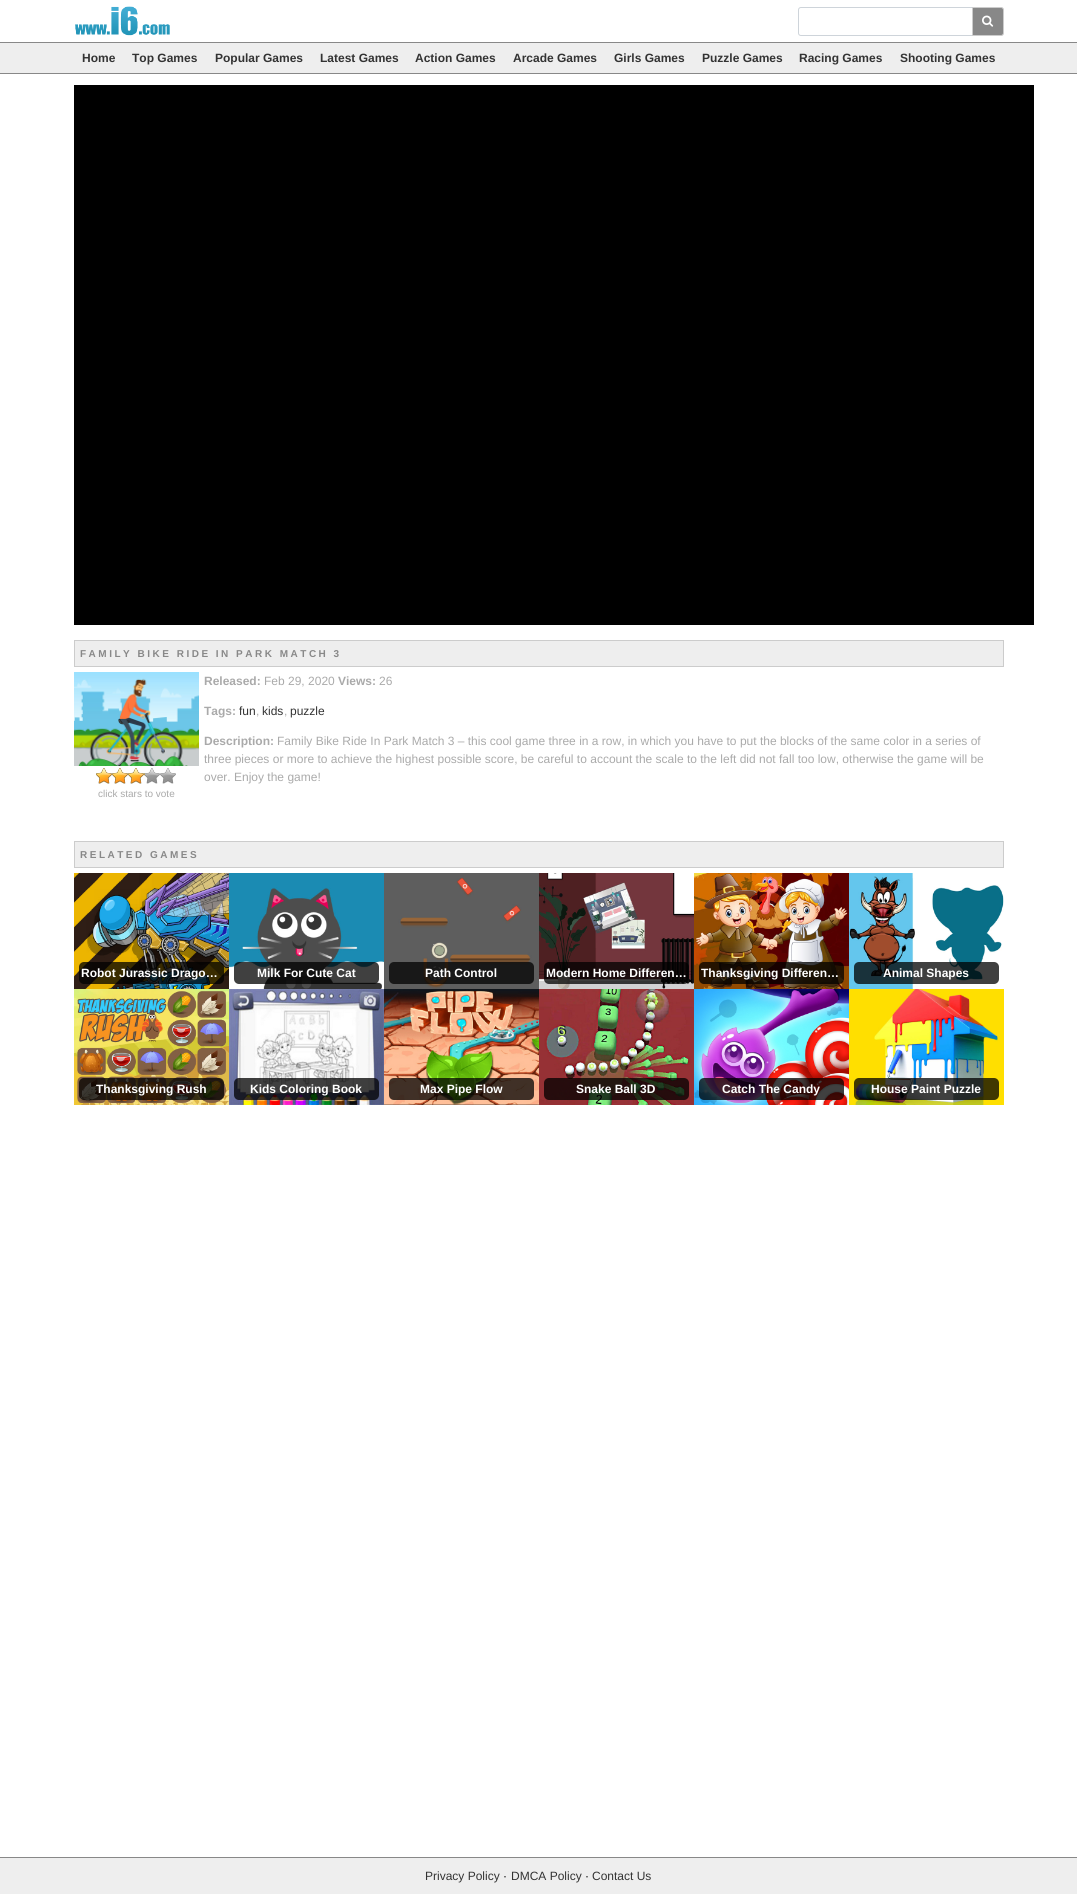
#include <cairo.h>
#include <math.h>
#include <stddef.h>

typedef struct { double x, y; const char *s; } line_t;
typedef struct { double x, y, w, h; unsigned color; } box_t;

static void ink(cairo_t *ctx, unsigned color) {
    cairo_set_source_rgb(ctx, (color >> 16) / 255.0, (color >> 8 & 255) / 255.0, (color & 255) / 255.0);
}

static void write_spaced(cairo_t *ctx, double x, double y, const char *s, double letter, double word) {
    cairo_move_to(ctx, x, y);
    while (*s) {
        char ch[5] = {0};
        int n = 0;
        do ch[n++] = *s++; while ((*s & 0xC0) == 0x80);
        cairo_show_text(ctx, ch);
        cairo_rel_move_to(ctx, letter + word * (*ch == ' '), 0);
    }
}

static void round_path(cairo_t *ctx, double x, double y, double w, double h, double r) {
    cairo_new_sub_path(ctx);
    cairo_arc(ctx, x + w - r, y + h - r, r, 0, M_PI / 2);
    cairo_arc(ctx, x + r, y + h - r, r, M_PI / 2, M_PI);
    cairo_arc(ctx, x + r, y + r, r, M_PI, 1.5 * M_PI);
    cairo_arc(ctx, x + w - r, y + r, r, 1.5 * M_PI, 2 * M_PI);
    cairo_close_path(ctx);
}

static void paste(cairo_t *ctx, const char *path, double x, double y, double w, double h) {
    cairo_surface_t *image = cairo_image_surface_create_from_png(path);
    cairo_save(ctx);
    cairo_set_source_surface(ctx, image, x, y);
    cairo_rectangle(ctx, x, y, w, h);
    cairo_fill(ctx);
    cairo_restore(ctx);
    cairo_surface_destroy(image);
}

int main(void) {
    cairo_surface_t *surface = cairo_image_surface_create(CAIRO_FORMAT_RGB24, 1077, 1894);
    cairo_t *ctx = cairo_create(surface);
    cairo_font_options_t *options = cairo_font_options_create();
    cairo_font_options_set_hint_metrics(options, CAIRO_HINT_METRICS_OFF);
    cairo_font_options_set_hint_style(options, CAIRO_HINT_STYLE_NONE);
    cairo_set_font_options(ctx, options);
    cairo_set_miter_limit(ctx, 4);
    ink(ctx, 0xFFFFFF);
    cairo_paint(ctx);
    paste(ctx, "media/1.png", 75, 6, 95, 30);
    cairo_new_path(ctx);
    cairo_move_to(ctx, 801, 7.5);
    cairo_line_to(ctx, 972.5, 7.5);
    cairo_line_to(ctx, 972.5, 35.5);
    cairo_line_to(ctx, 801, 35.5);
    cairo_curve_to(ctx, 799.5, 35.5, 798.5, 34.5, 798.5, 33);
    cairo_line_to(ctx, 798.5, 10);
    cairo_curve_to(ctx, 798.5, 8.5, 799.5, 7.5, 801, 7.5);
    cairo_close_path(ctx);
    ink(ctx, 0xCED4DA);
    cairo_set_line_width(ctx, 1);
    cairo_stroke(ctx);
    ink(ctx, 0x888888);
    cairo_new_path(ctx);
    cairo_move_to(ctx, 972.5, 7.5);
    cairo_line_to(ctx, 1001, 7.5);
    cairo_curve_to(ctx, 1002.5, 7.5, 1003.5, 8.5, 1003.5, 10);
    cairo_line_to(ctx, 1003.5, 33);
    cairo_curve_to(ctx, 1003.5, 34.5, 1002.5, 35.5, 1001, 35.5);
    cairo_line_to(ctx, 972.5, 35.5);
    cairo_close_path(ctx);
    cairo_fill_preserve(ctx);
    ink(ctx, 0xCCCCCC);
    cairo_stroke(ctx);
    paste(ctx, "media/2.png", 982, 15, 12, 12);
    {
        static const box_t items[] = {
            {0, 43, 1077, 30, 0xEEEEEE},
            {0, 42, 1077, 1, 0x888888},
            {0, 73, 1077, 1, 0x888888},
        };
        for (size_t i = 0; i < sizeof items / sizeof *items; i++) {
            ink(ctx, items[i].color);
            cairo_rectangle(ctx, items[i].x, items[i].y, items[i].w, items[i].h);
            cairo_fill(ctx);
        }
    }
    cairo_select_font_face(ctx, "Liberation Sans", CAIRO_FONT_SLANT_NORMAL, CAIRO_FONT_WEIGHT_BOLD);
    cairo_set_font_size(ctx, 12);
    ink(ctx, 0x333333);
    {
        static const line_t items[] = {
            {82, 62, "Home"},
            {132, 62, "Top Games"},
            {215, 62, "Popular Games"},
            {320, 62, "Latest Games"},
            {415, 62, "Action Games"},
            {513, 62, "Arcade Games"},
            {614, 62, "Girls Games"},
            {702, 62, "Puzzle Games"},
            {799, 62, "Racing Games"},
            {900, 62, "Shooting Games"},
        };
        for (size_t i = 0; i < sizeof items / sizeof *items; i++) {
            cairo_move_to(ctx, items[i].x, items[i].y);
            cairo_show_text(ctx, items[i].s);
        }
    }
    ink(ctx, 0x000000);
    cairo_rectangle(ctx, 74, 85, 960, 540);
    cairo_fill(ctx);
    ink(ctx, 0xEEEEEE);
    cairo_rectangle(ctx, 74.5, 640.5, 929, 26);
    cairo_fill_preserve(ctx);
    ink(ctx, 0xCCCCCC);
    cairo_stroke(ctx);
    cairo_set_font_size(ctx, 10);
    ink(ctx, 0x888888);
    write_spaced(ctx, 80, 657, "FAMILY BIKE RIDE IN PARK MATCH 3", 2.5, 0);
    cairo_set_font_size(ctx, 12);
    ink(ctx, 0xAAAAAA);
    cairo_move_to(ctx, 204, 685);
    cairo_show_text(ctx, "Released:");
    cairo_select_font_face(ctx, "Liberation Sans", CAIRO_FONT_SLANT_NORMAL, CAIRO_FONT_WEIGHT_NORMAL);
    cairo_move_to(ctx, 264, 685);
    cairo_show_text(ctx, "Feb 29, 2020");
    cairo_select_font_face(ctx, "Liberation Sans", CAIRO_FONT_SLANT_NORMAL, CAIRO_FONT_WEIGHT_BOLD);
    cairo_move_to(ctx, 338, 685);
    cairo_show_text(ctx, "Views:");
    cairo_select_font_face(ctx, "Liberation Sans", CAIRO_FONT_SLANT_NORMAL, CAIRO_FONT_WEIGHT_NORMAL);
    cairo_move_to(ctx, 379, 685);
    cairo_show_text(ctx, "26");
    cairo_select_font_face(ctx, "Liberation Sans", CAIRO_FONT_SLANT_NORMAL, CAIRO_FONT_WEIGHT_BOLD);
    cairo_move_to(ctx, 204, 715);
    cairo_show_text(ctx, "Tags:");
    cairo_select_font_face(ctx, "Liberation Sans", CAIRO_FONT_SLANT_NORMAL, CAIRO_FONT_WEIGHT_NORMAL);
    ink(ctx, 0x333333);
    cairo_move_to(ctx, 239, 715);
    cairo_show_text(ctx, "fun");
    ink(ctx, 0xAAAAAA);
    cairo_move_to(ctx, 256, 715);
    cairo_show_text(ctx, ",");
    ink(ctx, 0x333333);
    cairo_move_to(ctx, 262, 715);
    cairo_show_text(ctx, "kids");
    ink(ctx, 0xAAAAAA);
    cairo_move_to(ctx, 284, 715);
    cairo_show_text(ctx, ",");
    ink(ctx, 0x333333);
    cairo_move_to(ctx, 290, 715);
    cairo_show_text(ctx, "puzzle");
    cairo_select_font_face(ctx, "Liberation Sans", CAIRO_FONT_SLANT_NORMAL, CAIRO_FONT_WEIGHT_BOLD);
    ink(ctx, 0xAAAAAA);
    cairo_move_to(ctx, 204, 745);
    cairo_show_text(ctx, "Description:");
    cairo_select_font_face(ctx, "Liberation Sans", CAIRO_FONT_SLANT_NORMAL, CAIRO_FONT_WEIGHT_NORMAL);
    {
        static const line_t items[] = {
            {277, 745, "Family Bike Ride In Park Match 3 – this cool game three in a row, in which you have to put the blocks of the same color in a series of"},
            {204, 763, "three pieces or more to achieve the highest possible score, be careful to account the scale to the left did not fall too low, otherwise the game will be"},
            {204, 781, "over. Enjoy the game!"},
        };
        for (size_t i = 0; i < sizeof items / sizeof *items; i++) {
            cairo_move_to(ctx, items[i].x, items[i].y);
            cairo_show_text(ctx, items[i].s);
        }
    }
    paste(ctx, "media/3.png", 74, 672, 125, 94);
    paste(ctx, "media/4.png", 96, 768, 80, 16);
    paste(ctx, "media/5.png", 96, 768, 49, 16);
    cairo_set_font_size(ctx, 10);
    cairo_move_to(ctx, 98, 797);
    cairo_show_text(ctx, "click stars to vote");
    ink(ctx, 0xEEEEEE);
    cairo_rectangle(ctx, 74.5, 841.5, 929, 26);
    cairo_fill_preserve(ctx);
    ink(ctx, 0xCCCCCC);
    cairo_stroke(ctx);
    cairo_select_font_face(ctx, "Liberation Sans", CAIRO_FONT_SLANT_NORMAL, CAIRO_FONT_WEIGHT_BOLD);
    ink(ctx, 0x888888);
    write_spaced(ctx, 80, 858, "RELATED GAMES", 2.5, 0);
    paste(ctx, "media/6.png", 74, 873, 155, 116);
    cairo_set_source_rgba(ctx, 0, 0, 0, 0.75);
    round_path(ctx, 79, 962, 145, 22, 5);
    cairo_fill(ctx);
    cairo_set_font_size(ctx, 12);
    ink(ctx, 0xFFFFFF);
    cairo_move_to(ctx, 81, 977);
    cairo_show_text(ctx, "Robot Jurassic Drago…");
    paste(ctx, "media/7.png", 229, 873, 155, 116);
    cairo_set_source_rgba(ctx, 0, 0, 0, 0.75);
    round_path(ctx, 234, 962, 145, 22, 5);
    cairo_fill(ctx);
    ink(ctx, 0xFFFFFF);
    cairo_move_to(ctx, 257, 977);
    cairo_show_text(ctx, "Milk For Cute Cat");
    paste(ctx, "media/8.png", 384, 873, 155, 116);
    cairo_set_source_rgba(ctx, 0, 0, 0, 0.75);
    round_path(ctx, 389, 962, 145, 22, 5);
    cairo_fill(ctx);
    ink(ctx, 0xFFFFFF);
    cairo_move_to(ctx, 425, 977);
    cairo_show_text(ctx, "Path Control");
    paste(ctx, "media/9.png", 539, 873, 155, 116);
    cairo_set_source_rgba(ctx, 0, 0, 0, 0.75);
    round_path(ctx, 544, 962, 145, 22, 5);
    cairo_fill(ctx);
    ink(ctx, 0xFFFFFF);
    cairo_move_to(ctx, 546, 977);
    cairo_show_text(ctx, "Modern Home Differen…");
    paste(ctx, "media/10.png", 694, 873, 155, 116);
    cairo_set_source_rgba(ctx, 0, 0, 0, 0.75);
    round_path(ctx, 699, 962, 145, 22, 5);
    cairo_fill(ctx);
    ink(ctx, 0xFFFFFF);
    cairo_move_to(ctx, 701, 977);
    cairo_show_text(ctx, "Thanksgiving Differen…");
    paste(ctx, "media/11.png", 849, 873, 155, 116);
    cairo_set_source_rgba(ctx, 0, 0, 0, 0.75);
    round_path(ctx, 854, 962, 145, 22, 5);
    cairo_fill(ctx);
    ink(ctx, 0xFFFFFF);
    cairo_move_to(ctx, 883, 977);
    cairo_show_text(ctx, "Animal Shapes");
    paste(ctx, "media/12.png", 74, 989, 155, 116);
    cairo_set_source_rgba(ctx, 0, 0, 0, 0.75);
    round_path(ctx, 79, 1078, 145, 22, 5);
    cairo_fill(ctx);
    ink(ctx, 0xFFFFFF);
    cairo_move_to(ctx, 96, 1093);
    cairo_show_text(ctx, "Thanksgiving Rush");
    paste(ctx, "media/13.png", 229, 989, 155, 116);
    cairo_set_source_rgba(ctx, 0, 0, 0, 0.75);
    round_path(ctx, 234, 1078, 145, 22, 5);
    cairo_fill(ctx);
    ink(ctx, 0xFFFFFF);
    cairo_move_to(ctx, 250, 1093);
    cairo_show_text(ctx, "Kids Coloring Book");
    paste(ctx, "media/14.png", 384, 989, 155, 116);
    cairo_set_source_rgba(ctx, 0, 0, 0, 0.75);
    round_path(ctx, 389, 1078, 145, 22, 5);
    cairo_fill(ctx);
    ink(ctx, 0xFFFFFF);
    cairo_move_to(ctx, 420, 1093);
    cairo_show_text(ctx, "Max Pipe Flow");
    paste(ctx, "media/15.png", 539, 989, 155, 116);
    cairo_set_source_rgba(ctx, 0, 0, 0, 0.75);
    round_path(ctx, 544, 1078, 145, 22, 5);
    cairo_fill(ctx);
    ink(ctx, 0xFFFFFF);
    cairo_move_to(ctx, 576, 1093);
    cairo_show_text(ctx, "Snake Ball 3D");
    paste(ctx, "media/16.png", 694, 989, 155, 116);
    cairo_set_source_rgba(ctx, 0, 0, 0, 0.75);
    round_path(ctx, 699, 1078, 145, 22, 5);
    cairo_fill(ctx);
    ink(ctx, 0xFFFFFF);
    cairo_move_to(ctx, 722, 1093);
    cairo_show_text(ctx, "Catch The Candy");
    paste(ctx, "media/17.png", 849, 989, 155, 116);
    cairo_set_source_rgba(ctx, 0, 0, 0, 0.75);
    round_path(ctx, 854, 1078, 145, 22, 5);
    cairo_fill(ctx);
    ink(ctx, 0xFFFFFF);
    cairo_move_to(ctx, 871, 1093);
    cairo_show_text(ctx, "House Paint Puzzle");
    ink(ctx, 0xEEEEEE);
    cairo_rectangle(ctx, 0, 1858, 1077, 36);
    cairo_fill(ctx);
    ink(ctx, 0x888888);
    cairo_rectangle(ctx, 0, 1857, 1077, 1);
    cairo_fill(ctx);
    cairo_select_font_face(ctx, "Liberation Sans", CAIRO_FONT_SLANT_NORMAL, CAIRO_FONT_WEIGHT_NORMAL);
    ink(ctx, 0x333333);
    cairo_move_to(ctx, 425, 1880);
    cairo_show_text(ctx, "Privacy Policy");
    ink(ctx, 0x000000);
    cairo_move_to(ctx, 503, 1880);
    cairo_show_text(ctx, "·");
    ink(ctx, 0x333333);
    cairo_move_to(ctx, 511, 1880);
    cairo_show_text(ctx, "DMCA Policy");
    ink(ctx, 0x000000);
    cairo_move_to(ctx, 585, 1880);
    cairo_show_text(ctx, "·");
    ink(ctx, 0x333333);
    cairo_move_to(ctx, 592, 1880);
    cairo_show_text(ctx, "Contact Us");
    cairo_surface_write_to_png(surface, "image.png");
    cairo_font_options_destroy(options);
    cairo_destroy(ctx);
    cairo_surface_destroy(surface);
    return 0;
}
